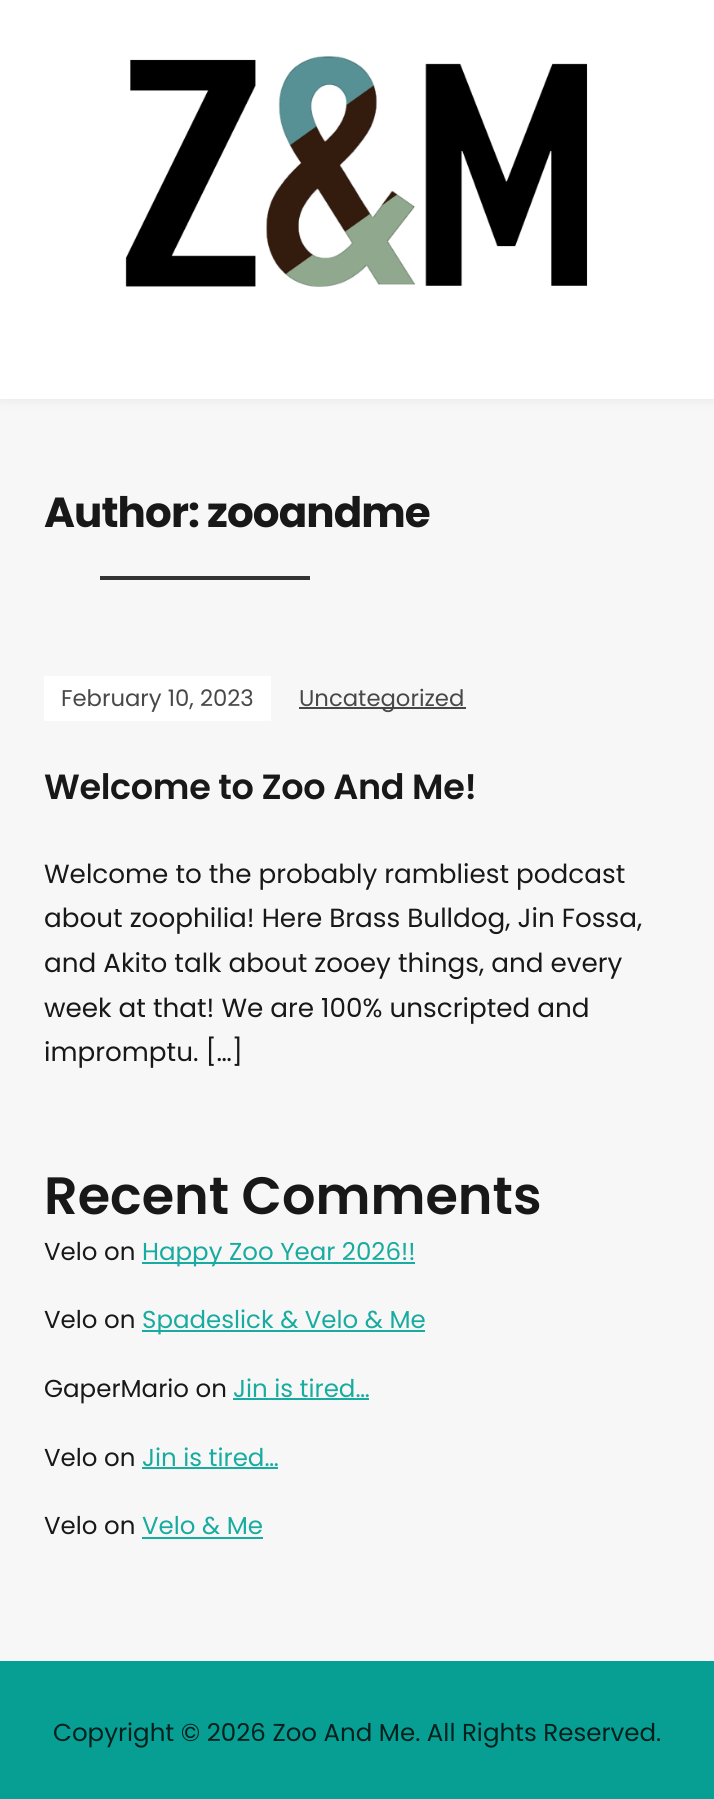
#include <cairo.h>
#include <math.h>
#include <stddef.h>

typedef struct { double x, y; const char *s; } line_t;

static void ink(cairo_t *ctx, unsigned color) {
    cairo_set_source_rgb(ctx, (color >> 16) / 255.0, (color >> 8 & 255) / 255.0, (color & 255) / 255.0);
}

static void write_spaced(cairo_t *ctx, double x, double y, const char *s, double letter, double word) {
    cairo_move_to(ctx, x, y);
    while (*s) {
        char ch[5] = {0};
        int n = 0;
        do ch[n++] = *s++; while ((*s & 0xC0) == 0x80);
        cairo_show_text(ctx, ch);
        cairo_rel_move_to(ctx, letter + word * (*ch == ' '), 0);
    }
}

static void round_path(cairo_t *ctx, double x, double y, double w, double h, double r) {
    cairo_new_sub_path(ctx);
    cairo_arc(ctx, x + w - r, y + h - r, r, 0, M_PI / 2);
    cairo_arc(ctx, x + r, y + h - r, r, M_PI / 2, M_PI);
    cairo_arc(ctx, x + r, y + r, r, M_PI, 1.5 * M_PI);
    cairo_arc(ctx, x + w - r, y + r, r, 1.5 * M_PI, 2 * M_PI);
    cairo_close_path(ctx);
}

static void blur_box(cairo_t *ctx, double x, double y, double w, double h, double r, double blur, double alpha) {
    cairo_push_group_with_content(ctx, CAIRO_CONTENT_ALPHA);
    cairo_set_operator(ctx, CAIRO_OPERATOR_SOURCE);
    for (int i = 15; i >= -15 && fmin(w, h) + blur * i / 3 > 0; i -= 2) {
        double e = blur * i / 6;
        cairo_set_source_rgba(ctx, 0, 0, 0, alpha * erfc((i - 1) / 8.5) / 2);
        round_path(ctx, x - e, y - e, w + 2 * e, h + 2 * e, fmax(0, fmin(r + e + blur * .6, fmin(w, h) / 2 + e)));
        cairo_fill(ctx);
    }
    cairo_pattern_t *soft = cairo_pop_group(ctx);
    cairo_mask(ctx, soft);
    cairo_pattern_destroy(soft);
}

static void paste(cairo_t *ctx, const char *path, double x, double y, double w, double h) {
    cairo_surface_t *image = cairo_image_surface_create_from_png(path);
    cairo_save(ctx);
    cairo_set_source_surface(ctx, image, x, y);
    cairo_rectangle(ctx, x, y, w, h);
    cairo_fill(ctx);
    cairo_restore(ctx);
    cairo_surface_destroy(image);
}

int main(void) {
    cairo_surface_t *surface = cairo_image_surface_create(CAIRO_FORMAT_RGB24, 714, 1799);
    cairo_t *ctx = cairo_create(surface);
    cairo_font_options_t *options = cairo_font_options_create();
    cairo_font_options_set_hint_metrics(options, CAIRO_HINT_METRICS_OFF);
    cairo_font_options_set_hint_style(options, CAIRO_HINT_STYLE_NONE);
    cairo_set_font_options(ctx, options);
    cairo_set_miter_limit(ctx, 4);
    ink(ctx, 0xF7F7F7);
    cairo_paint(ctx);
    ink(ctx, 0x000000);
    blur_box(ctx, 0, 0, 714, 399, 0, 7, 0.07);
    ink(ctx, 0xFFFFFF);
    cairo_rectangle(ctx, 0, 0, 714, 399);
    cairo_fill(ctx);
    paste(ctx, "media/1.png", 125, 56, 463, 231);
    cairo_select_font_face(ctx, "Poppins", CAIRO_FONT_SLANT_NORMAL, CAIRO_FONT_WEIGHT_BOLD);
    cairo_set_font_size(ctx, 42);
    ink(ctx, 0x181818);
    write_spaced(ctx, 44, 527, "Author: zooandme", -0.9, 0);
    ink(ctx, 0x333333);
    cairo_rectangle(ctx, 100, 576, 210, 4);
    cairo_fill(ctx);
    ink(ctx, 0xFFFFFF);
    cairo_rectangle(ctx, 44, 676, 227, 45);
    cairo_fill(ctx);
    cairo_select_font_face(ctx, "Poppins", CAIRO_FONT_SLANT_NORMAL, CAIRO_FONT_WEIGHT_NORMAL);
    cairo_set_font_size(ctx, 22.75);
    ink(ctx, 0x484848);
    cairo_move_to(ctx, 61, 706);
    cairo_show_text(ctx, "February 10, 2023");
    cairo_rectangle(ctx, 299, 707, 167, 2);
    cairo_fill(ctx);
    cairo_move_to(ctx, 299, 706);
    cairo_show_text(ctx, "Uncategorized");
    cairo_select_font_face(ctx, "Poppins SemiBold", CAIRO_FONT_SLANT_NORMAL, CAIRO_FONT_WEIGHT_NORMAL);
    cairo_set_font_size(ctx, 35);
    ink(ctx, 0x181818);
    write_spaced(ctx, 44, 799, "Welcome to Zoo And Me!", -0.35, 0);
    cairo_select_font_face(ctx, "Poppins", CAIRO_FONT_SLANT_NORMAL, CAIRO_FONT_WEIGHT_NORMAL);
    cairo_set_font_size(ctx, 26.25);
    {
        static const line_t items[] = {
            {44, 883, "Welcome to the probably rambliest podcast"},
            {44, 927, "about zoophilia! Here Brass Bulldog, Jin Fossa,"},
            {44, 972, "and Akito talk about zooey things, and every"},
            {44, 1017, "week at that! We are 100% unscripted and"},
            {44, 1061, "impromptu. […]"},
        };
        for (size_t i = 0; i < sizeof items / sizeof *items; i++) {
            cairo_move_to(ctx, items[i].x, items[i].y);
            cairo_show_text(ctx, items[i].s);
        }
    }
    cairo_select_font_face(ctx, "Poppins SemiBold", CAIRO_FONT_SLANT_NORMAL, CAIRO_FONT_WEIGHT_NORMAL);
    cairo_set_font_size(ctx, 52.5);
    cairo_move_to(ctx, 44, 1214);
    cairo_show_text(ctx, "Recent Comments");
    cairo_select_font_face(ctx, "Poppins", CAIRO_FONT_SLANT_NORMAL, CAIRO_FONT_WEIGHT_NORMAL);
    cairo_set_font_size(ctx, 24.5);
    cairo_move_to(ctx, 44, 1260);
    cairo_show_text(ctx, "Velo on");
    ink(ctx, 0x18AB9F);
    cairo_rectangle(ctx, 142, 1262, 273, 2);
    cairo_fill(ctx);
    cairo_move_to(ctx, 142, 1260);
    cairo_show_text(ctx, "Happy Zoo Year 2026!!");
    ink(ctx, 0x181818);
    cairo_move_to(ctx, 44, 1328);
    cairo_show_text(ctx, "Velo on");
    ink(ctx, 0x18AB9F);
    cairo_rectangle(ctx, 142, 1330, 283, 2);
    cairo_fill(ctx);
    cairo_move_to(ctx, 142, 1328);
    cairo_show_text(ctx, "Spadeslick & Velo & Me");
    ink(ctx, 0x181818);
    cairo_move_to(ctx, 44, 1397);
    cairo_show_text(ctx, "GaperMario on");
    ink(ctx, 0x18AB9F);
    cairo_move_to(ctx, 233, 1397);
    cairo_show_text(ctx, "Jin is tired…");
    cairo_rectangle(ctx, 233, 1398, 136, 2);
    cairo_fill(ctx);
    ink(ctx, 0x181818);
    cairo_move_to(ctx, 44, 1466);
    cairo_show_text(ctx, "Velo on");
    ink(ctx, 0x18AB9F);
    cairo_move_to(ctx, 142, 1466);
    cairo_show_text(ctx, "Jin is tired…");
    cairo_rectangle(ctx, 142, 1467, 136, 2);
    cairo_fill(ctx);
    ink(ctx, 0x181818);
    cairo_move_to(ctx, 44, 1534);
    cairo_show_text(ctx, "Velo on");
    ink(ctx, 0x18AB9F);
    cairo_move_to(ctx, 142, 1534);
    cairo_show_text(ctx, "Velo & Me");
    cairo_rectangle(ctx, 142, 1537, 121, 2);
    cairo_fill(ctx);
    ink(ctx, 0x079F93);
    cairo_rectangle(ctx, 0, 1661, 714, 138);
    cairo_fill(ctx);
    ink(ctx, 0x01201D);
    cairo_move_to(ctx, 53, 1741);
    cairo_show_text(ctx, "Copyright © 2026 Zoo And Me. All Rights Reserved.");
    cairo_surface_write_to_png(surface, "image.png");
    cairo_font_options_destroy(options);
    cairo_destroy(ctx);
    cairo_surface_destroy(surface);
    return 0;
}
